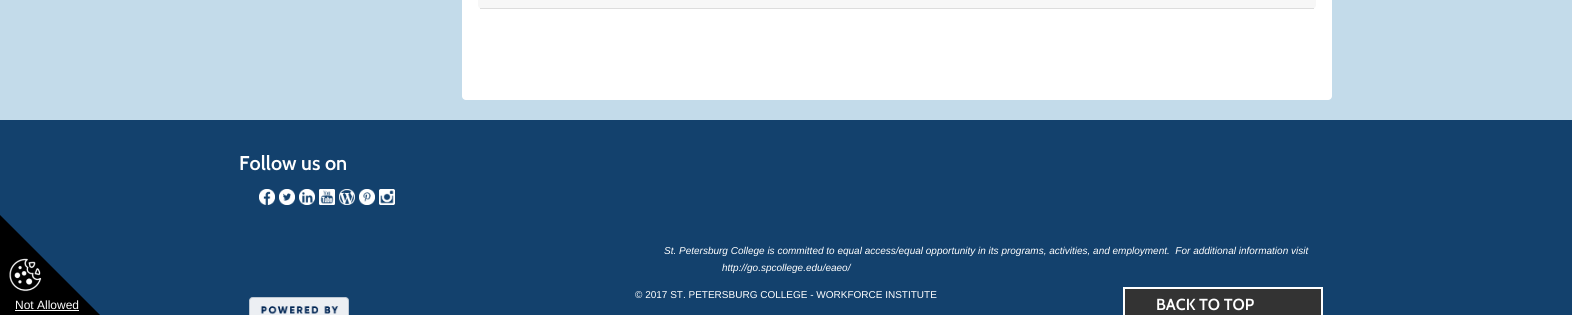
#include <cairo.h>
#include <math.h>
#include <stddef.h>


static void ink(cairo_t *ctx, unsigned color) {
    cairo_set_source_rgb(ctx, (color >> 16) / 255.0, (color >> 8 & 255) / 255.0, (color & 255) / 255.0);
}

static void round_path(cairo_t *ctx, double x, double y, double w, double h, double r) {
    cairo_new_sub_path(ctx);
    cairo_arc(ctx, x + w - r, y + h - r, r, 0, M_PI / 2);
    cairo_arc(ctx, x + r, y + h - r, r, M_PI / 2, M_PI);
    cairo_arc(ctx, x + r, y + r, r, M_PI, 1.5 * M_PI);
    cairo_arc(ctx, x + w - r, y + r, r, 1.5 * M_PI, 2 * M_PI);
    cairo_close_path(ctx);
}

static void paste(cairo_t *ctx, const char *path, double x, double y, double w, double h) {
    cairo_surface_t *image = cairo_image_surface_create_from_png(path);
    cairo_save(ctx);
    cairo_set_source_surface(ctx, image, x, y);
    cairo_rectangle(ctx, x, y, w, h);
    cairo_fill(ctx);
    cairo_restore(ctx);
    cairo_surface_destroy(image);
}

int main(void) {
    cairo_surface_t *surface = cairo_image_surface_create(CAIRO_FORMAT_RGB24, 1572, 315);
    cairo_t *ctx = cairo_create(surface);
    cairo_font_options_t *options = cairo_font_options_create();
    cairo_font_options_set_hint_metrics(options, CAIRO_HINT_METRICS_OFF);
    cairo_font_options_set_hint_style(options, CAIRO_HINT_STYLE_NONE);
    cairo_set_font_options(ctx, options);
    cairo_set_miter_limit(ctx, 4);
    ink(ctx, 0xC3DBEA);
    cairo_paint(ctx);
    ink(ctx, 0x13416D);
    cairo_rectangle(ctx, 0, 120, 1572, 113);
    cairo_fill(ctx);
    cairo_select_font_face(ctx, "Cabin SemiBold", CAIRO_FONT_SLANT_NORMAL, CAIRO_FONT_WEIGHT_NORMAL);
    cairo_set_font_size(ctx, 20);
    ink(ctx, 0xFFFFFF);
    cairo_move_to(ctx, 239, 170);
    cairo_show_text(ctx, "Follow us on");
    paste(ctx, "media/1.png", 259, 189, 16, 16);
    paste(ctx, "media/2.png", 279, 189, 16, 16);
    paste(ctx, "media/3.png", 299, 189, 16, 16);
    paste(ctx, "media/4.png", 319, 189, 16, 16);
    paste(ctx, "media/5.png", 339, 189, 16, 16);
    paste(ctx, "media/6.png", 359, 189, 16, 16);
    paste(ctx, "media/7.png", 379, 189, 16, 16);
    ink(ctx, 0x13416D);
    cairo_rectangle(ctx, 18, 233, 1554, 54);
    cairo_fill(ctx);
    cairo_select_font_face(ctx, "Liberation Sans", CAIRO_FONT_SLANT_ITALIC, CAIRO_FONT_WEIGHT_NORMAL);
    cairo_set_font_size(ctx, 10);
    ink(ctx, 0xFFFFFF);
    cairo_move_to(ctx, 664, 254);
    cairo_show_text(ctx, "St. Petersburg College is committed to equal access/equal opportunity in its programs, activities, and employment.  For additional information visit");
    cairo_move_to(ctx, 722, 271);
    cairo_show_text(ctx, "http://go.spcollege.edu/eaeo/");
    round_path(ctx, 462, -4, 870, 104, 4);
    cairo_fill(ctx);
    ink(ctx, 0xF7F7F7);
    round_path(ctx, 478, -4, 838, 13, 4);
    cairo_fill(ctx);
    ink(ctx, 0xDDDDDD);
    cairo_rectangle(ctx, 480, 8, 834, 1);
    cairo_fill(ctx);
    ink(ctx, 0x13416D);
    cairo_rectangle(ctx, 72, 287, 1500, 28);
    cairo_fill(ctx);
    ink(ctx, 0x000000);
    cairo_new_path(ctx);
    cairo_move_to(ctx, 100, 315);
    cairo_line_to(ctx, 0, 315);
    cairo_line_to(ctx, 0, 215);
    cairo_close_path(ctx);
    cairo_fill(ctx);
    paste(ctx, "media/8.png", 9, 258, 33, 34);
    cairo_select_font_face(ctx, "Liberation Sans", CAIRO_FONT_SLANT_NORMAL, CAIRO_FONT_WEIGHT_NORMAL);
    cairo_set_font_size(ctx, 12);
    ink(ctx, 0xFFFFFF);
    cairo_move_to(ctx, 15, 309);
    cairo_show_text(ctx, "Not Allowed");
    cairo_rectangle(ctx, 15, 310, 64, 1);
    cairo_fill(ctx);
    cairo_set_font_size(ctx, 10);
    cairo_move_to(ctx, 635, 298);
    cairo_show_text(ctx, "© 2017 ST. PETERSBURG COLLEGE - WORKFORCE INSTITUTE");
    paste(ctx, "media/9.png", 249, 297, 100, 18);
    ink(ctx, 0x333333);
    cairo_rectangle(ctx, 1124, 288, 198, 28);
    cairo_fill_preserve(ctx);
    ink(ctx, 0xFFFFFF);
    cairo_stroke(ctx);
    cairo_select_font_face(ctx, "Cabin SemiBold", CAIRO_FONT_SLANT_NORMAL, CAIRO_FONT_WEIGHT_NORMAL);
    cairo_set_font_size(ctx, 16);
    cairo_move_to(ctx, 1156, 310);
    cairo_show_text(ctx, "BACK TO TOP");
    cairo_surface_write_to_png(surface, "image.png");
    cairo_font_options_destroy(options);
    cairo_destroy(ctx);
    cairo_surface_destroy(surface);
    return 0;
}
